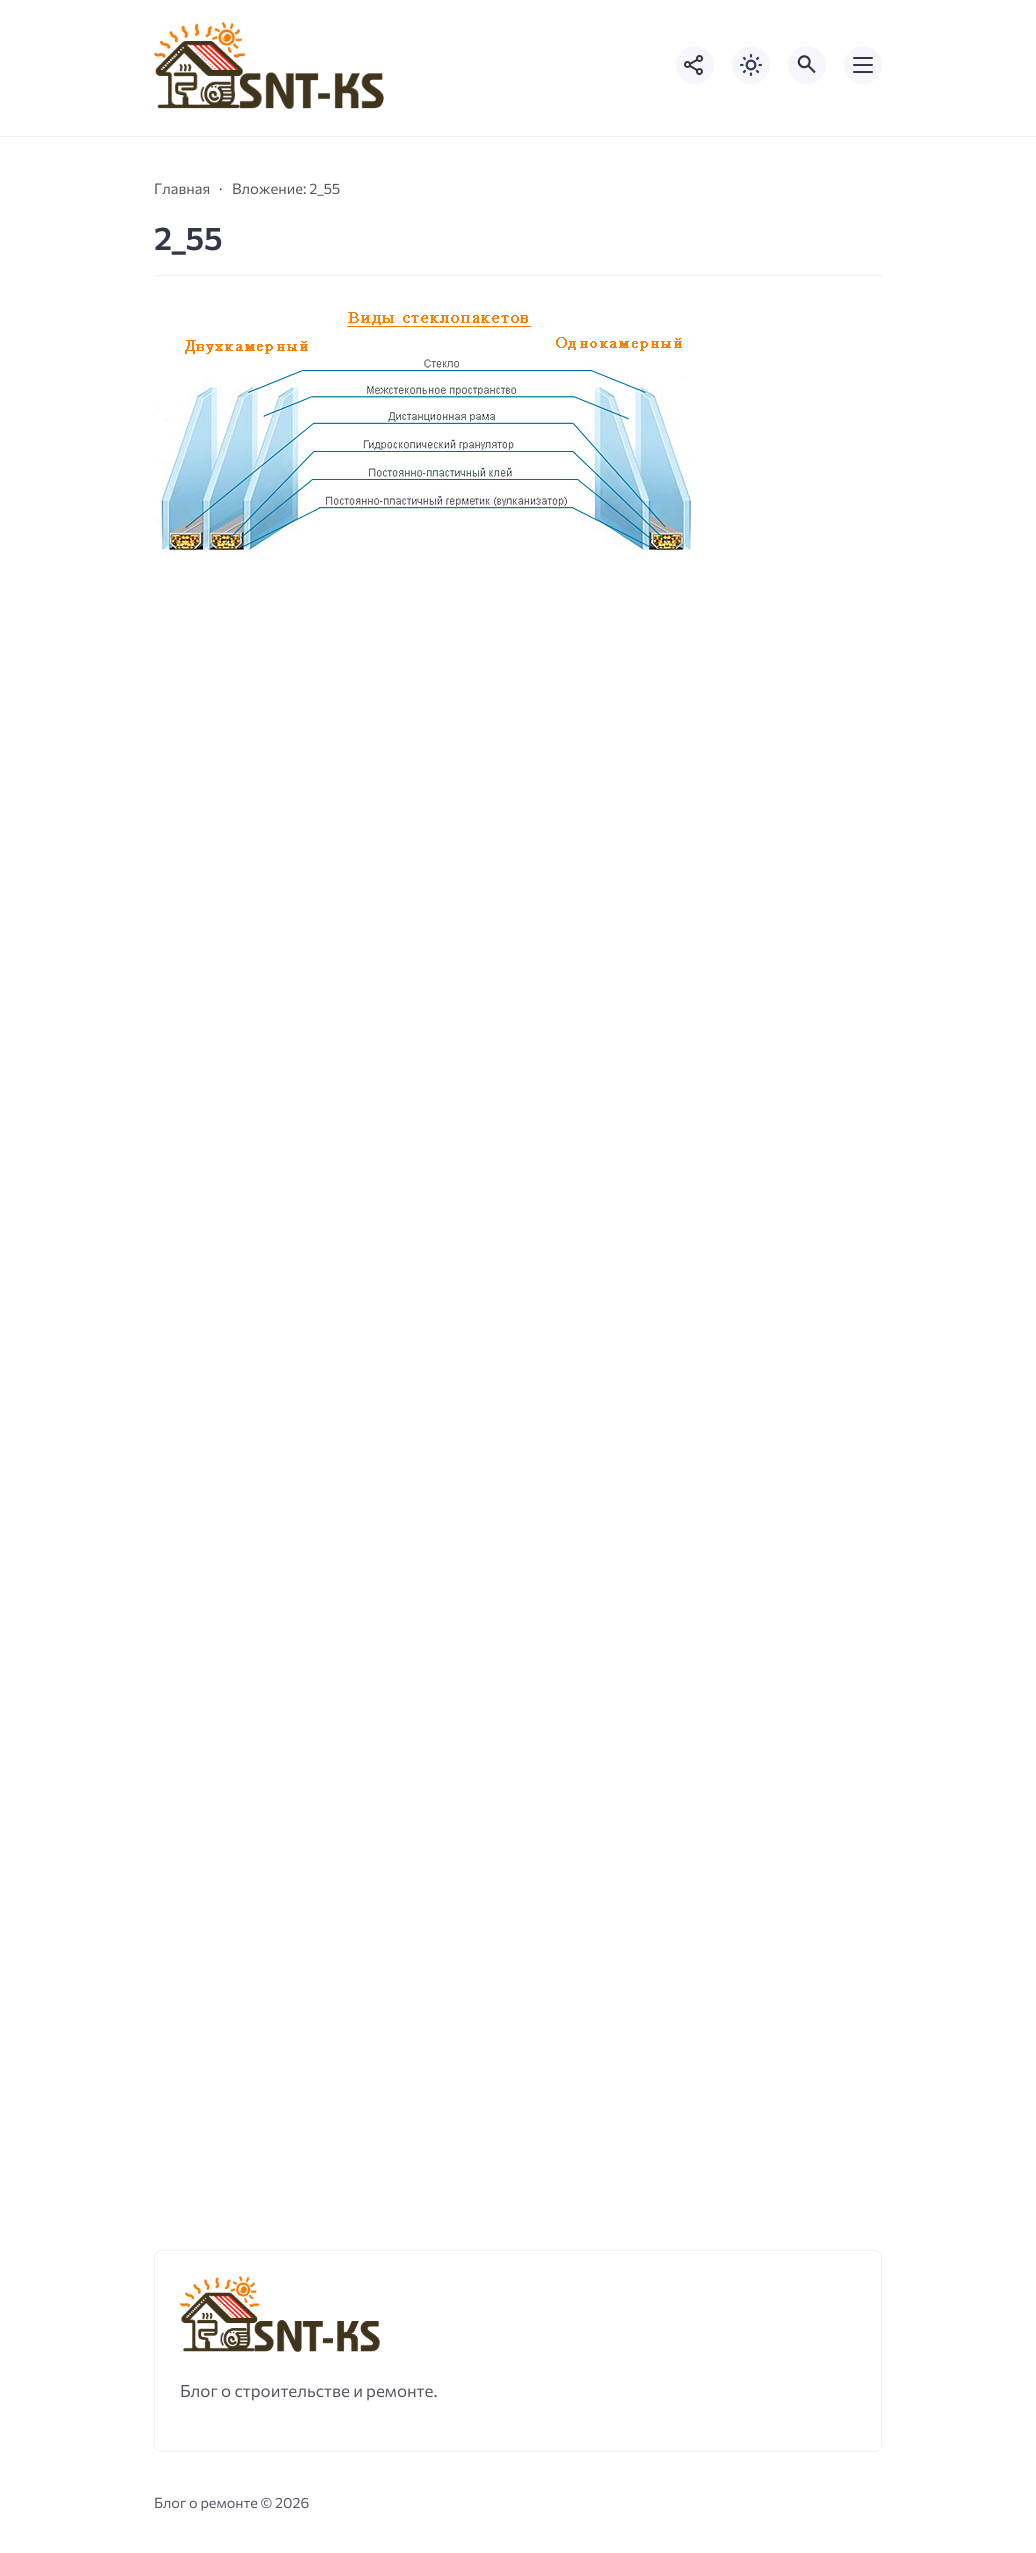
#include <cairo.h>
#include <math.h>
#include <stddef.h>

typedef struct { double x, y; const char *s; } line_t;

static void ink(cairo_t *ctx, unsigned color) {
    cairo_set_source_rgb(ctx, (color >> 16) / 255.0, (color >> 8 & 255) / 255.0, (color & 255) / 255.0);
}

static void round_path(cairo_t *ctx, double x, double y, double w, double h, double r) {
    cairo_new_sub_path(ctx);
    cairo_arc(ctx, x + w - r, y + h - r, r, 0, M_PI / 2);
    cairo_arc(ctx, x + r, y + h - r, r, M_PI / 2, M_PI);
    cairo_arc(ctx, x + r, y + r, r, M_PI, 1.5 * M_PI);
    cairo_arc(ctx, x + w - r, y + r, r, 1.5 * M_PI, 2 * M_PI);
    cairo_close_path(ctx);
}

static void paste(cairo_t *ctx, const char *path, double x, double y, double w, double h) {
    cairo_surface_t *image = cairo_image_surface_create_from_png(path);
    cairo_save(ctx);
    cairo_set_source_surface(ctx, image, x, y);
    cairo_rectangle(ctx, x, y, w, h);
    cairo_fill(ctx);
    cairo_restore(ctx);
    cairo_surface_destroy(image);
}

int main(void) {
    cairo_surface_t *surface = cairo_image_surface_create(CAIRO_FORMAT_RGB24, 1036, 2553);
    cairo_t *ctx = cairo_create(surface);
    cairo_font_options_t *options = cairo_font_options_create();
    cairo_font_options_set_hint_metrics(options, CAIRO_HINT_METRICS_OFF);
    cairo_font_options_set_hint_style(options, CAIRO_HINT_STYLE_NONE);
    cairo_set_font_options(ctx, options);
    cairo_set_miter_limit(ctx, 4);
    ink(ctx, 0xFFFFFF);
    cairo_paint(ctx);
    ink(ctx, 0xEFF0F8);
    cairo_rectangle(ctx, 0, 136, 1036, 1);
    cairo_fill(ctx);
    paste(ctx, "media/1.png", 154, 22, 230, 87);
    ink(ctx, 0xF7F6FB);
    cairo_arc(ctx, 695, 65, 19, 0, 2 * M_PI);
    cairo_fill(ctx);
    paste(ctx, "media/2.png", 684, 55, 19, 20);
    cairo_arc(ctx, 751, 65, 19, 0, 2 * M_PI);
    cairo_fill(ctx);
    paste(ctx, "media/3.png", 740, 54, 22, 22);
    cairo_arc(ctx, 807, 65, 19, 0, 2 * M_PI);
    cairo_fill(ctx);
    paste(ctx, "media/4.png", 797, 55, 19, 19);
    cairo_arc(ctx, 863, 65, 19, 0, 2 * M_PI);
    cairo_fill(ctx);
    ink(ctx, 0x333646);
    round_path(ctx, 853, 64, 20, 2, 1);
    cairo_fill(ctx);
    round_path(ctx, 853, 57, 20, 2, 1);
    cairo_fill(ctx);
    round_path(ctx, 853, 71, 20, 2, 1);
    cairo_fill(ctx);
    ink(ctx, 0xEFF0F8);
    cairo_rectangle(ctx, 154, 275, 728, 1);
    cairo_fill(ctx);
    cairo_select_font_face(ctx, "Commissioner", CAIRO_FONT_SLANT_NORMAL, CAIRO_FONT_WEIGHT_NORMAL);
    cairo_set_font_size(ctx, 14.75);
    ink(ctx, 0x525661);
    {
        static const line_t items[] = {
            {154, 194, "Главная"},
            {219, 194, "·"},
            {232, 194, "Вложение: 2_55"},
        };
        for (size_t i = 0; i < sizeof items / sizeof *items; i++) {
            cairo_move_to(ctx, items[i].x, items[i].y);
            cairo_show_text(ctx, items[i].s);
        }
    }
    cairo_select_font_face(ctx, "Commissioner SemiBold", CAIRO_FONT_SLANT_NORMAL, CAIRO_FONT_WEIGHT_NORMAL);
    cairo_set_font_size(ctx, 32);
    ink(ctx, 0x333646);
    cairo_move_to(ctx, 154, 250);
    cairo_show_text(ctx, "2_55");
    paste(ctx, "media/5.png", 154, 306, 544, 252);
    round_path(ctx, 154.5, 2250.5, 727, 201, 7.5);
    ink(ctx, 0xEFF0F8);
    cairo_set_line_width(ctx, 1);
    cairo_stroke(ctx);
    paste(ctx, "media/6.png", 180, 2276, 200, 76);
    cairo_select_font_face(ctx, "Commissioner", CAIRO_FONT_SLANT_NORMAL, CAIRO_FONT_WEIGHT_NORMAL);
    cairo_set_font_size(ctx, 16.9);
    ink(ctx, 0x525661);
    cairo_move_to(ctx, 180, 2397);
    cairo_show_text(ctx, "Блог о строительстве и ремонте.");
    cairo_set_font_size(ctx, 14.4);
    cairo_move_to(ctx, 154, 2508);
    cairo_show_text(ctx, "Блог о ремонте © 2026");
    cairo_surface_write_to_png(surface, "image.png");
    cairo_font_options_destroy(options);
    cairo_destroy(ctx);
    cairo_surface_destroy(surface);
    return 0;
}
